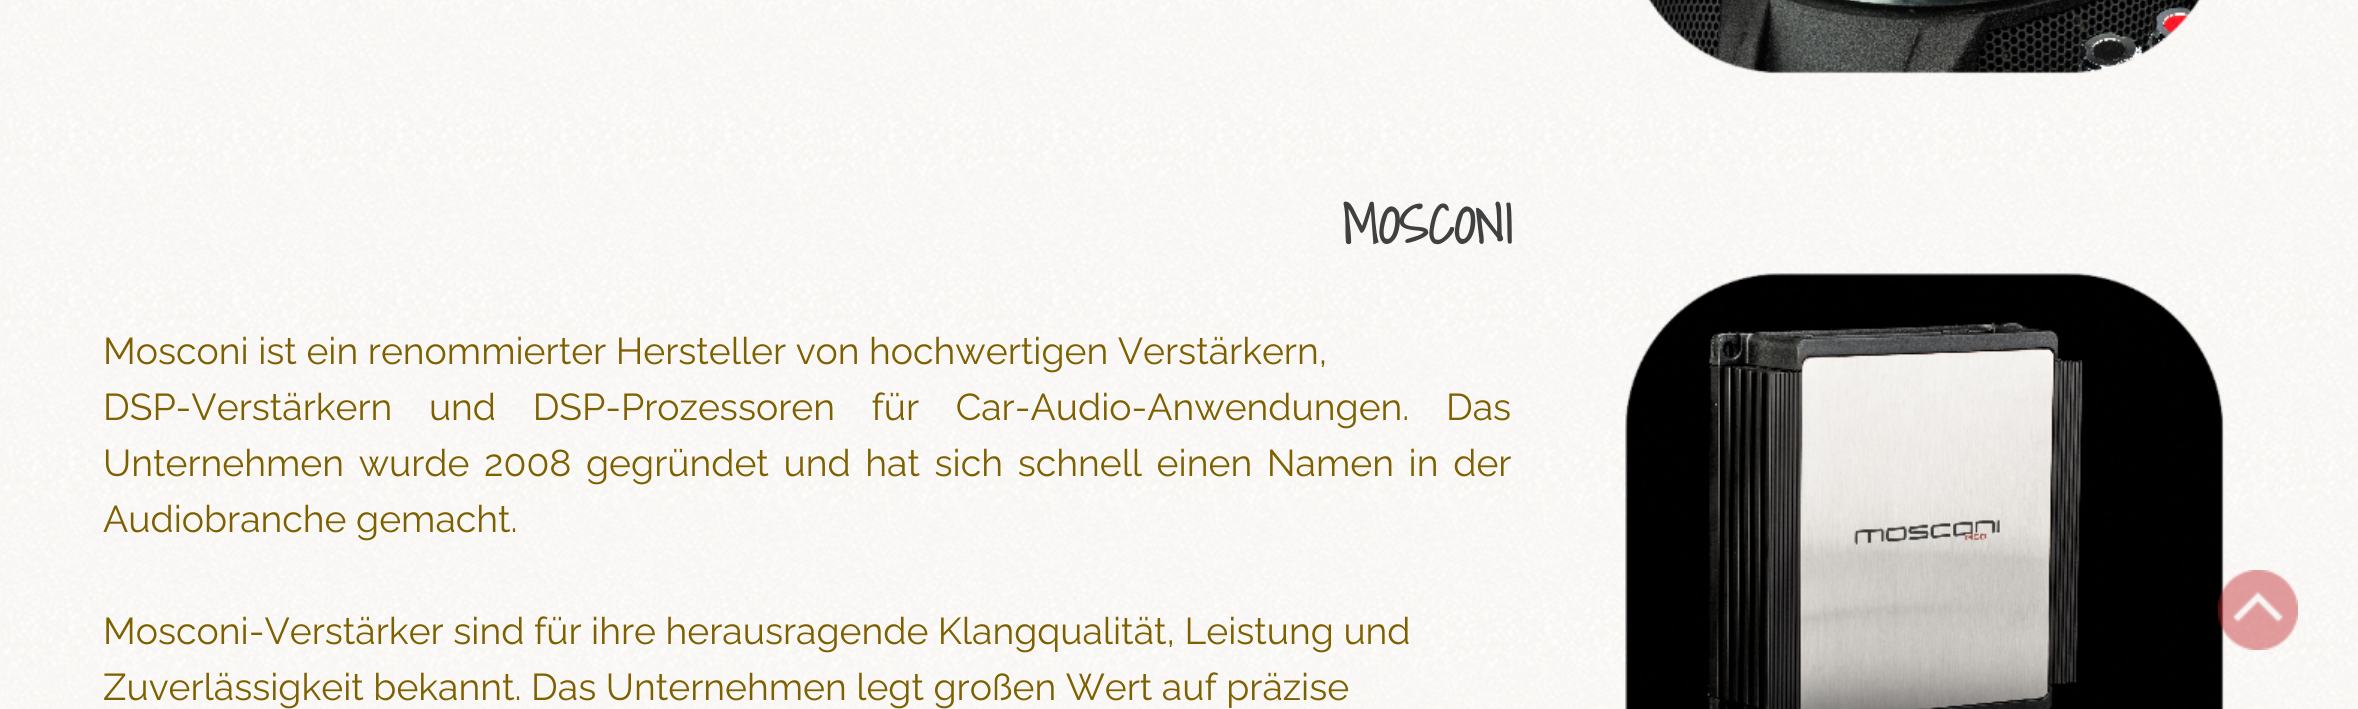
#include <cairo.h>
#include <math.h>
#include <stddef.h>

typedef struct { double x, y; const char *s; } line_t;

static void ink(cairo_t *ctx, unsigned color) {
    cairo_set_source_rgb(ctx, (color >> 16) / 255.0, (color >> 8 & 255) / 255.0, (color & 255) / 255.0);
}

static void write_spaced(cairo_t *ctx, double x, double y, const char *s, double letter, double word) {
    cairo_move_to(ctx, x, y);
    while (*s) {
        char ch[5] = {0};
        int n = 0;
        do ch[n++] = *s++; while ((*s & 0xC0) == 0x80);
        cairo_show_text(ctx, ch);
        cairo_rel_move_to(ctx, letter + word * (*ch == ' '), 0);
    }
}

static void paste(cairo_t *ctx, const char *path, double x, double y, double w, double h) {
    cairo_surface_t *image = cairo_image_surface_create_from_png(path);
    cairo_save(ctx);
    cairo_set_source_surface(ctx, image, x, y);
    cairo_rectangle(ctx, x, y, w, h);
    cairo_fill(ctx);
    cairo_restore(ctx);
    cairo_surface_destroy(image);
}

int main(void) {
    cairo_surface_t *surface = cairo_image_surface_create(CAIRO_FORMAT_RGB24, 2358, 709);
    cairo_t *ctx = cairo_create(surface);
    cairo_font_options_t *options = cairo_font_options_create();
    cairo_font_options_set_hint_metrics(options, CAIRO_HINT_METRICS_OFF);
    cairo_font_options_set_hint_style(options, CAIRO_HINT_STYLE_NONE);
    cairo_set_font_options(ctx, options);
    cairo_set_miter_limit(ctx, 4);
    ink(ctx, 0xFFFFFF);
    cairo_paint(ctx);
    paste(ctx, "media/1.png", 0, 0, 2358, 709);
    paste(ctx, "media/2.png", 1648, 0, 553, 74);
    cairo_select_font_face(ctx, "Shadows Into Light", CAIRO_FONT_SLANT_NORMAL, CAIRO_FONT_WEIGHT_BOLD);
    cairo_set_font_size(ctx, 53.5);
    ink(ctx, 0x404040);
    cairo_move_to(ctx, 1342, 244);
    cairo_show_text(ctx, "MOSCONI");
    cairo_select_font_face(ctx, "Raleway", CAIRO_FONT_SLANT_NORMAL, CAIRO_FONT_WEIGHT_NORMAL);
    cairo_set_font_size(ctx, 37.35);
    ink(ctx, 0x7F6000);
    cairo_move_to(ctx, 103, 364);
    cairo_show_text(ctx, "Mosconi ist ein renommierter Hersteller von hochwertigen Verstärkern,");
    write_spaced(ctx, 103, 420, "DSP-Verstärkern und DSP-Prozessoren für Car-Audio-Anwendungen. Das", 0, 27);
    write_spaced(ctx, 103, 476, "Unternehmen wurde 2008 gegründet und hat sich schnell einen Namen in der", 0, 5.1);
    {
        static const line_t items[] = {
            {103, 532, "Audiobranche gemacht."},
            {103, 644, "Mosconi-Verstärker sind für ihre herausragende Klangqualität, Leistung und"},
            {103, 700, "Zuverlässigkeit bekannt. Das Unternehmen legt großen Wert auf präzise"},
        };
        for (size_t i = 0; i < sizeof items / sizeof *items; i++) {
            cairo_move_to(ctx, items[i].x, items[i].y);
            cairo_show_text(ctx, items[i].s);
        }
    }
    paste(ctx, "media/3.png", 1625, 273, 599, 436);
    paste(ctx, "media/4.png", 2218, 570, 80, 80);
    cairo_surface_write_to_png(surface, "image.png");
    cairo_font_options_destroy(options);
    cairo_destroy(ctx);
    cairo_surface_destroy(surface);
    return 0;
}
